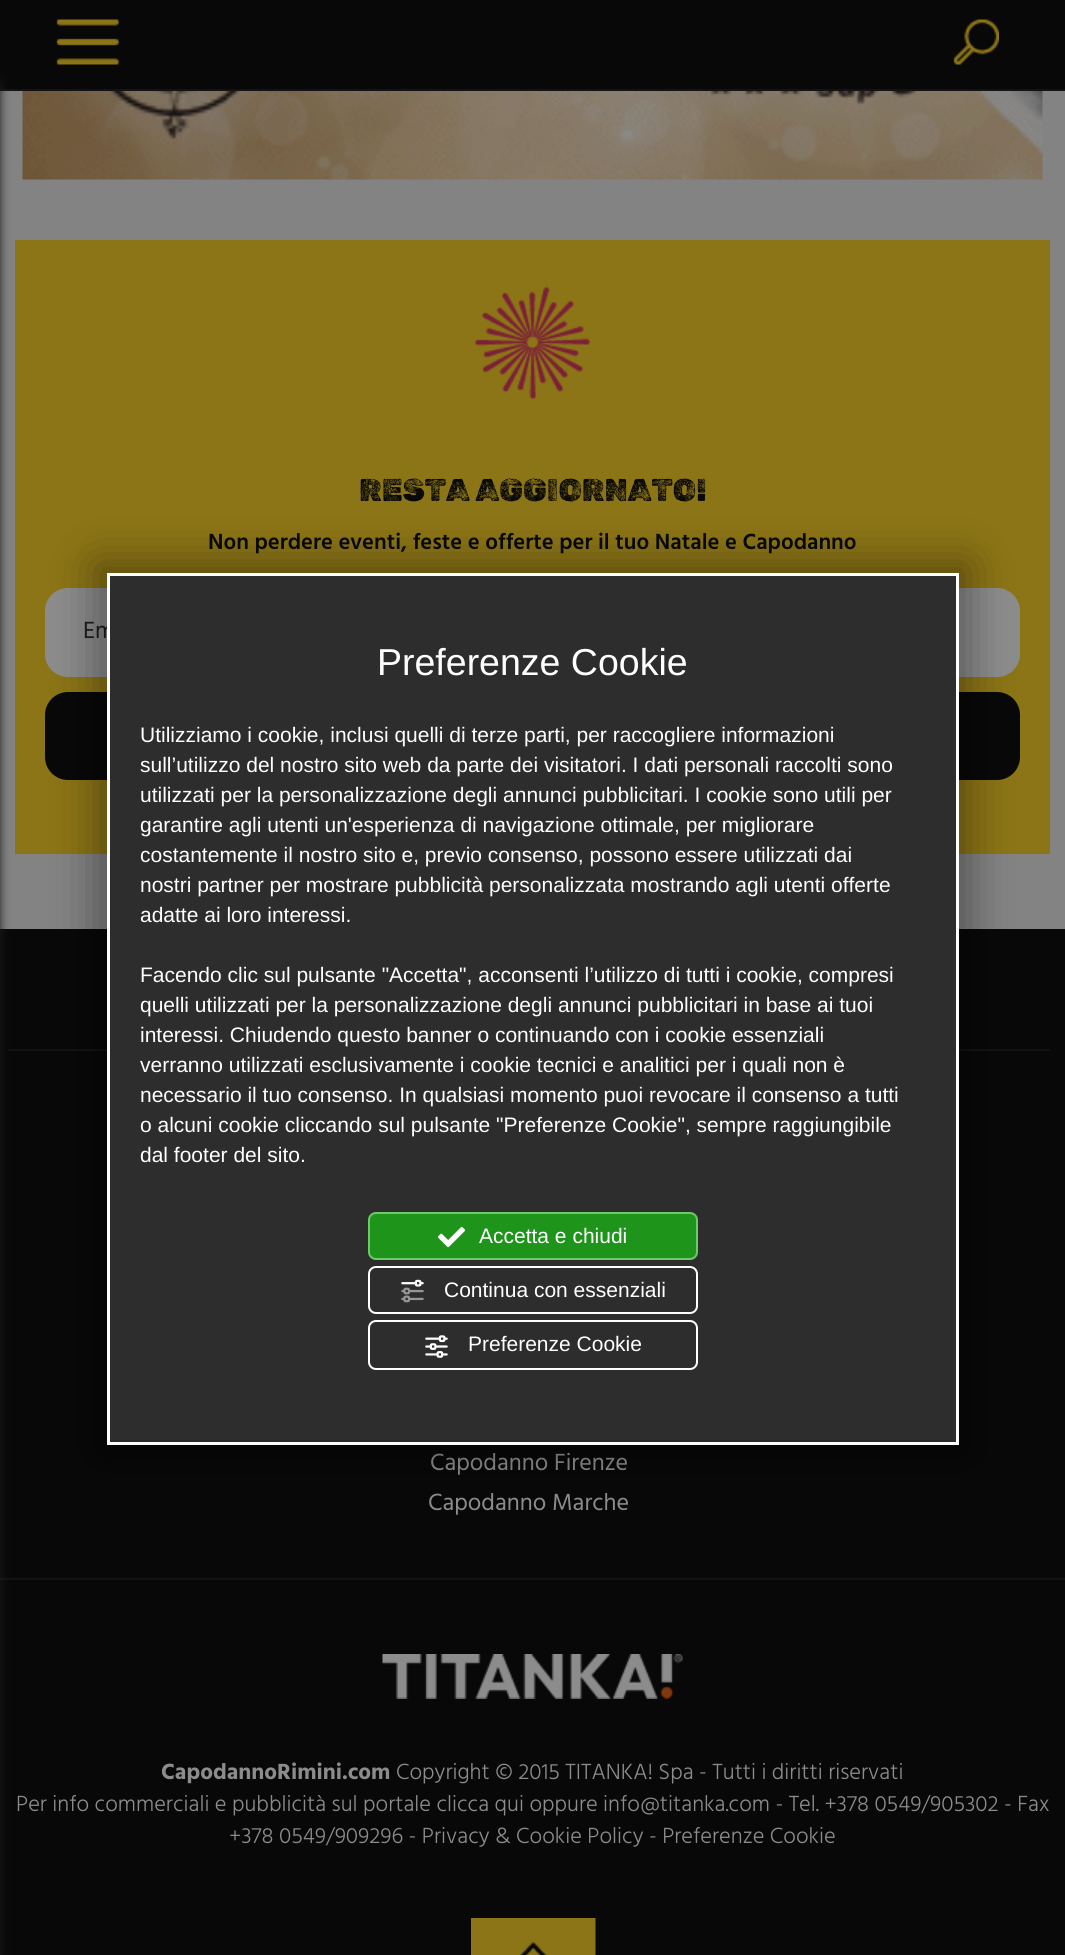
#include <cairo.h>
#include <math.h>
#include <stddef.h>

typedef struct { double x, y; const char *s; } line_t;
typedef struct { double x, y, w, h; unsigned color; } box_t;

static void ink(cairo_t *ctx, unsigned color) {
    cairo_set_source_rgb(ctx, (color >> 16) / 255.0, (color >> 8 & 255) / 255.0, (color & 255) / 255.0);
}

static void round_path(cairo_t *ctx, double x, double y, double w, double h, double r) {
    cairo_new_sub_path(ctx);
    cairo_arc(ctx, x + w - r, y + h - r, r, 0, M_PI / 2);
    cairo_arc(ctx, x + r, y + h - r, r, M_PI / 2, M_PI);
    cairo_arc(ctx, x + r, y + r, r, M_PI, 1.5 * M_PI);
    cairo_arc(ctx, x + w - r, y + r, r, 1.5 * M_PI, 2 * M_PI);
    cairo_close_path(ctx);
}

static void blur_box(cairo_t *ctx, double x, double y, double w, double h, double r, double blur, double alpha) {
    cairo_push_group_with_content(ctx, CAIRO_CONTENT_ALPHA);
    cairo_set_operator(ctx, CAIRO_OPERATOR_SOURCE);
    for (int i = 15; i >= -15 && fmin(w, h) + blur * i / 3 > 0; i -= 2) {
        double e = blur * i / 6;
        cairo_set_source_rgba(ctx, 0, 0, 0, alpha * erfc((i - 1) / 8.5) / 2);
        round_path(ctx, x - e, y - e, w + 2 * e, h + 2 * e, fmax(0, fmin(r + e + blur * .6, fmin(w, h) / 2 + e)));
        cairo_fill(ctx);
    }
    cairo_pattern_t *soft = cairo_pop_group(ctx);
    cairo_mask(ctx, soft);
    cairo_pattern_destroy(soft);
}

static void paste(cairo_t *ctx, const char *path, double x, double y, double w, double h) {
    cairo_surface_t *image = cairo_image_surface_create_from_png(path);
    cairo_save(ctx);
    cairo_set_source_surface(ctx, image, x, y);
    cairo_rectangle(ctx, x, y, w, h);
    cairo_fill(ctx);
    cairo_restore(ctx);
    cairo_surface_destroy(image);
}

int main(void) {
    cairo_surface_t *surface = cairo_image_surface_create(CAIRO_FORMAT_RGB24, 1065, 1955);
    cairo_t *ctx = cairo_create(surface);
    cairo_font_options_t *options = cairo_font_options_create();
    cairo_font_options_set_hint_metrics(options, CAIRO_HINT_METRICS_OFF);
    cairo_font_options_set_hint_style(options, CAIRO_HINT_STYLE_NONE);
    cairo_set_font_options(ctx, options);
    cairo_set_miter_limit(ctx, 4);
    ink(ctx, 0x838383);
    cairo_paint(ctx);
    ink(ctx, 0x080808);
    cairo_rectangle(ctx, 0, 0, 1065, 89);
    cairo_fill(ctx);
    ink(ctx, 0x131313);
    cairo_rectangle(ctx, 0, 89, 1065, 2);
    cairo_fill(ctx);
    paste(ctx, "media/1.png", 56, 19, 64, 46);
    paste(ctx, "media/2.png", 953, 19, 46, 46);
    {
        static const box_t items[] = {
            {15, 240, 1035, 614, 0x8C7516},
            {0, 929, 1065, 649, 0x080808},
            {8, 1049, 1042, 2, 0x131313},
            {0, 1580, 1065, 375, 0x080808},
            {0, 1578, 1065, 2, 0x131313},
        };
        for (size_t i = 0; i < sizeof items / sizeof *items; i++) {
            ink(ctx, items[i].color);
            cairo_rectangle(ctx, items[i].x, items[i].y, items[i].w, items[i].h);
            cairo_fill(ctx);
        }
    }
    ink(ctx, 0x1C1C1C);
    blur_box(ctx, -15, 83, 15, 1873, 0, 5, 1);
    paste(ctx, "media/3.png", 22, 91, 1021, 89);
    paste(ctx, "media/4.png", 475, 287, 115, 112);
    cairo_select_font_face(ctx, "Rubik Dirt", CAIRO_FONT_SLANT_NORMAL, CAIRO_FONT_WEIGHT_NORMAL);
    cairo_set_font_size(ctx, 31.5);
    ink(ctx, 0x090909);
    cairo_move_to(ctx, 359, 501);
    cairo_show_text(ctx, "RESTA AGGIORNATO!");
    cairo_select_font_face(ctx, "Hind SemiBold", CAIRO_FONT_SLANT_NORMAL, CAIRO_FONT_WEIGHT_NORMAL);
    cairo_set_font_size(ctx, 22.5);
    cairo_move_to(ctx, 208, 549);
    cairo_show_text(ctx, "Non perdere eventi, feste e offerte per il tuo Natale e Capodanno");
    ink(ctx, 0x8C8C8C);
    round_path(ctx, 47.5, 590.5, 970, 84, 20.5);
    cairo_fill_preserve(ctx);
    cairo_set_line_width(ctx, 5);
    cairo_stroke(ctx);
    cairo_select_font_face(ctx, "Hind", CAIRO_FONT_SLANT_NORMAL, CAIRO_FONT_WEIGHT_NORMAL);
    cairo_set_font_size(ctx, 24);
    ink(ctx, 0x1C1C1C);
    cairo_move_to(ctx, 83, 638);
    cairo_show_text(ctx, "Em");
    ink(ctx, 0x080808);
    round_path(ctx, 45, 692, 975, 88, 23);
    cairo_fill(ctx);
    ink(ctx, 0x8C8C8C);
    cairo_move_to(ctx, 430, 1470);
    cairo_show_text(ctx, "Capodanno Firenze");
    cairo_move_to(ctx, 428, 1510);
    cairo_show_text(ctx, "Capodanno Marche");
    paste(ctx, "media/5.png", 382, 1654, 301, 45);
    cairo_select_font_face(ctx, "Hind", CAIRO_FONT_SLANT_NORMAL, CAIRO_FONT_WEIGHT_BOLD);
    cairo_set_font_size(ctx, 22.5);
    cairo_move_to(ctx, 161, 1779);
    cairo_show_text(ctx, "CapodannoRimini.com");
    cairo_select_font_face(ctx, "Hind Light", CAIRO_FONT_SLANT_NORMAL, CAIRO_FONT_WEIGHT_NORMAL);
    {
        static const line_t items[] = {
            {396, 1779, "Copyright © 2015 TITANKA! Spa - Tutti i diritti riservati"},
            {16, 1811, "Per info commerciali e pubblicità sul portale clicca qui oppure info@titanka.com - Tel. +378 0549/905302 - Fax"},
            {229, 1843, "+378 0549/909296 - Privacy & Cookie Policy - Preferenze Cookie"},
        };
        for (size_t i = 0; i < sizeof items / sizeof *items; i++) {
            cairo_move_to(ctx, items[i].x, items[i].y);
            cairo_show_text(ctx, items[i].s);
        }
    }
    paste(ctx, "media/6.png", 471, 1918, 125, 37);
    ink(ctx, 0x000000);
    blur_box(ctx, 96, 563, 873, 892, 0, 22, 0.38);
    ink(ctx, 0x2D2D2D);
    cairo_rectangle(ctx, 108.5, 574.5, 849, 869);
    cairo_fill_preserve(ctx);
    ink(ctx, 0xFFFFFF);
    cairo_set_line_width(ctx, 3);
    cairo_stroke(ctx);
    cairo_select_font_face(ctx, "Liberation Sans", CAIRO_FONT_SLANT_NORMAL, CAIRO_FONT_WEIGHT_NORMAL);
    cairo_set_font_size(ctx, 37.5);
    cairo_move_to(ctx, 377, 675);
    cairo_show_text(ctx, "Preferenze Cookie");
    cairo_set_font_size(ctx, 21);
    {
        static const line_t items[] = {
            {140, 742, "Utilizziamo i cookie, inclusi quelli di terze parti, per raccogliere informazioni"},
            {140, 772, "sull’utilizzo del nostro sito web da parte dei visitatori. I dati personali raccolti sono"},
            {140, 802, "utilizzati per la personalizzazione degli annunci pubblicitari. I cookie sono utili per"},
            {140, 832, "garantire agli utenti un'esperienza di navigazione ottimale, per migliorare"},
            {140, 862, "costantemente il nostro sito e, previo consenso, possono essere utilizzati dai"},
            {140, 892, "nostri partner per mostrare pubblicità personalizzata mostrando agli utenti offerte"},
            {140, 922, "adatte ai loro interessi."},
            {140, 982, "Facendo clic sul pulsante \"Accetta\", acconsenti l’utilizzo di tutti i cookie, compresi"},
            {140, 1012, "quelli utilizzati per la personalizzazione degli annunci pubblicitari in base ai tuoi"},
            {140, 1042, "interessi. Chiudendo questo banner o continuando con i cookie essenziali"},
            {140, 1072, "verranno utilizzati esclusivamente i cookie tecnici e analitici per i quali non è"},
            {140, 1102, "necessario il tuo consenso. In qualsiasi momento puoi revocare il consenso a tutti"},
            {140, 1132, "o alcuni cookie cliccando sul pulsante \"Preferenze Cookie\", sempre raggiungibile"},
            {140, 1162, "dal footer del sito."},
        };
        for (size_t i = 0; i < sizeof items / sizeof *items; i++) {
            cairo_move_to(ctx, items[i].x, items[i].y);
            cairo_show_text(ctx, items[i].s);
        }
    }
    ink(ctx, 0x1E941A);
    round_path(ctx, 369, 1213, 328, 46, 7);
    cairo_fill_preserve(ctx);
    ink(ctx, 0x6CCA69);
    cairo_set_line_width(ctx, 2);
    cairo_stroke(ctx);
    paste(ctx, "media/7.png", 438, 1227, 27, 21);
    ink(ctx, 0xFFFFFF);
    cairo_move_to(ctx, 479, 1243);
    cairo_show_text(ctx, "Accetta e chiudi");
    round_path(ctx, 369, 1267, 328, 46, 7);
    cairo_stroke(ctx);
    paste(ctx, "media/8.png", 401, 1279, 23, 24);
    cairo_move_to(ctx, 444, 1297);
    cairo_show_text(ctx, "Continua con essenziali");
    round_path(ctx, 369, 1321, 328, 48, 7);
    cairo_stroke(ctx);
    paste(ctx, "media/9.png", 425, 1335, 23, 23);
    cairo_move_to(ctx, 468, 1351);
    cairo_show_text(ctx, "Preferenze Cookie");
    cairo_surface_write_to_png(surface, "image.png");
    cairo_font_options_destroy(options);
    cairo_destroy(ctx);
    cairo_surface_destroy(surface);
    return 0;
}
